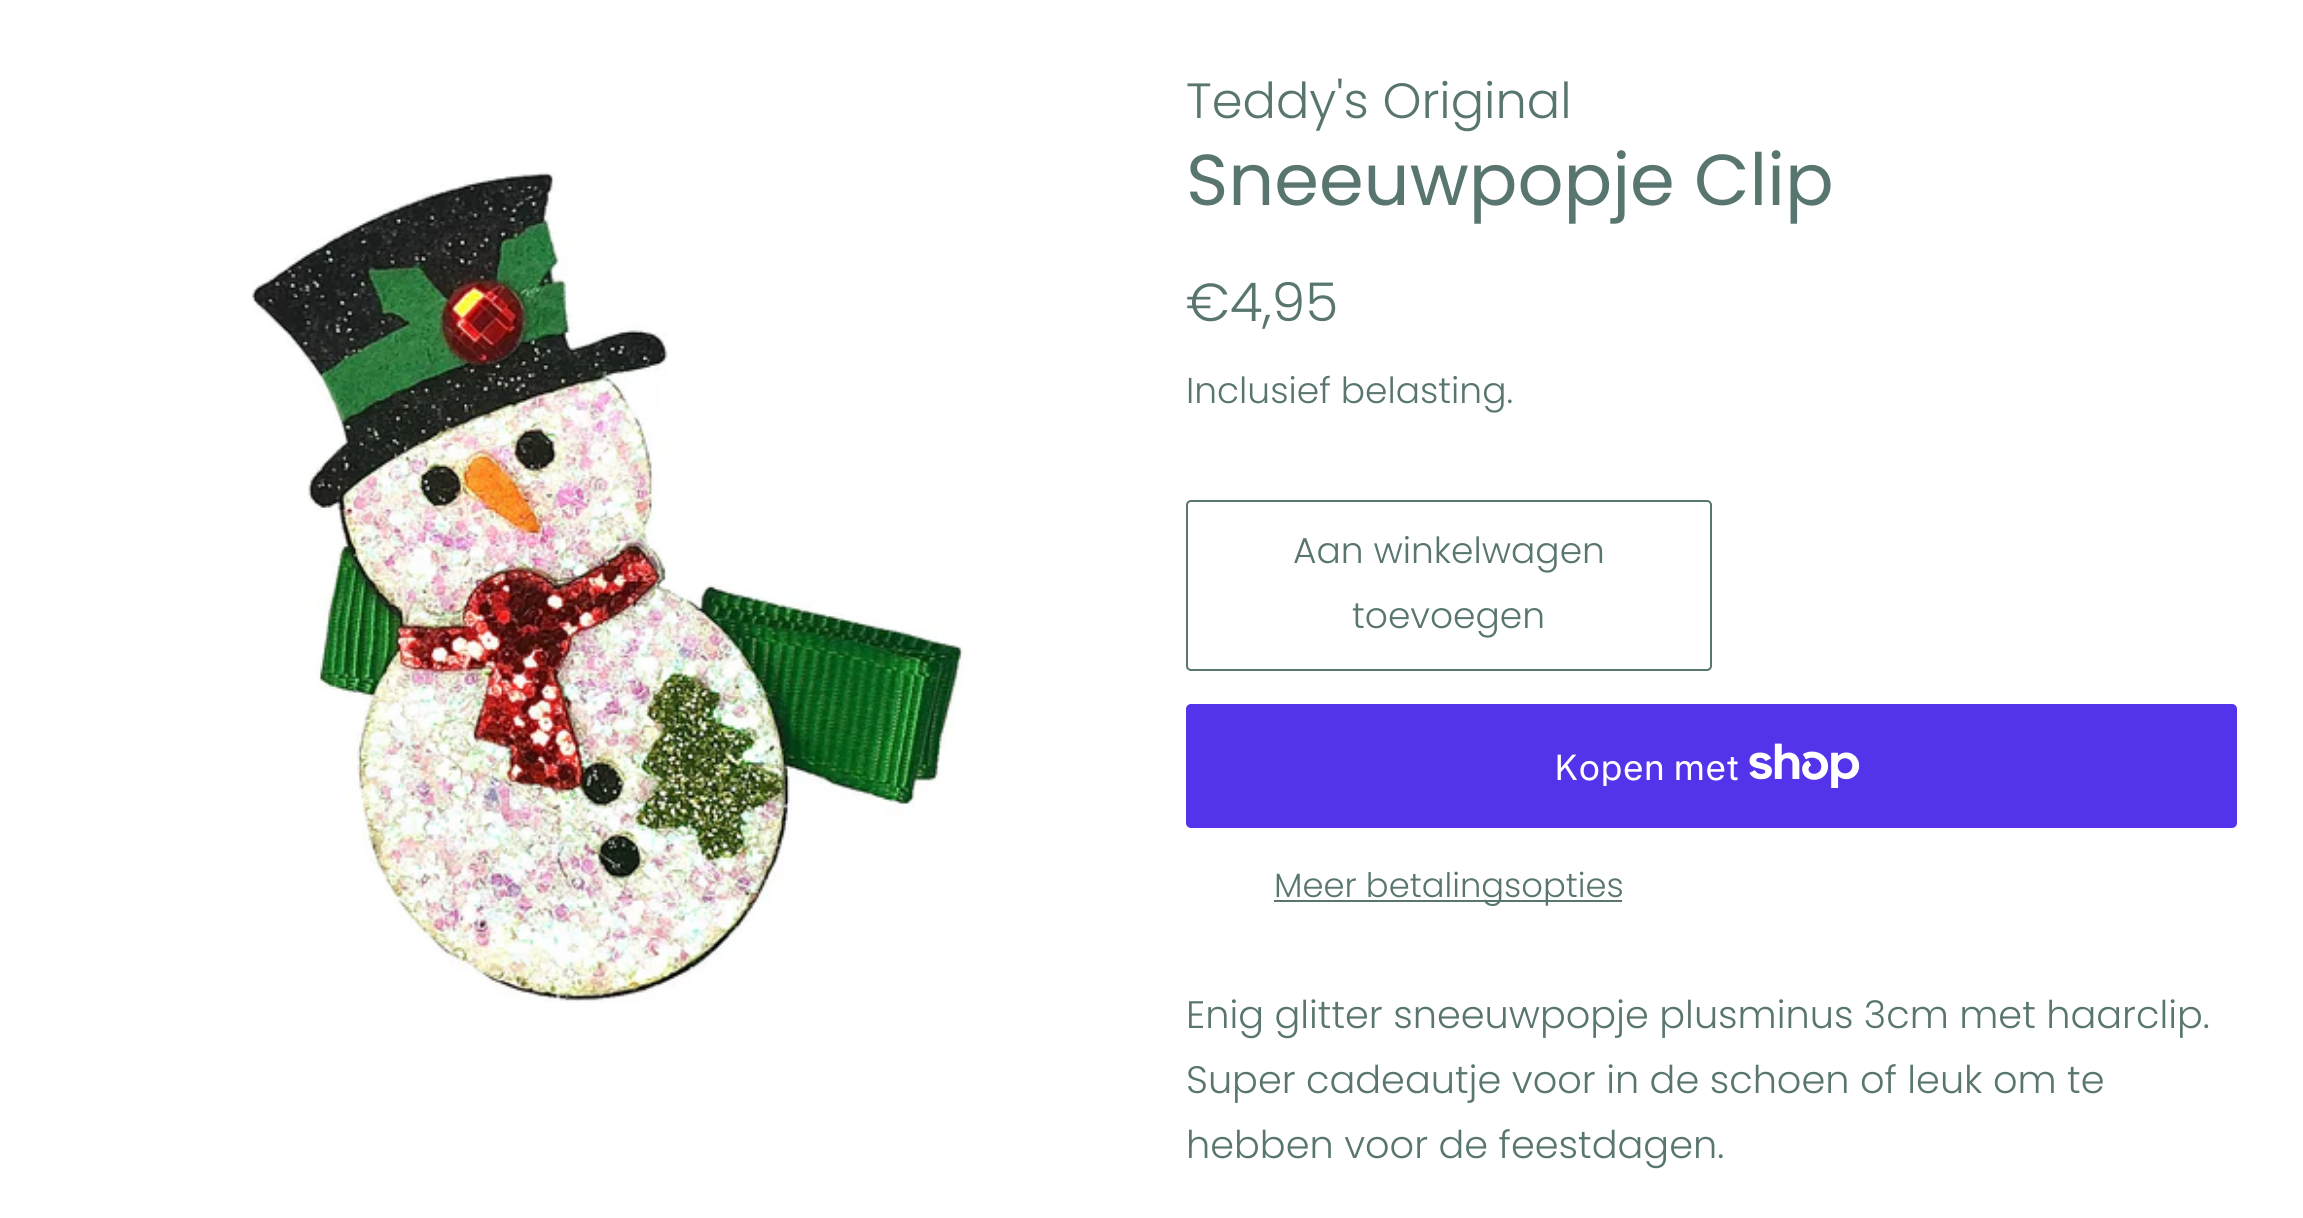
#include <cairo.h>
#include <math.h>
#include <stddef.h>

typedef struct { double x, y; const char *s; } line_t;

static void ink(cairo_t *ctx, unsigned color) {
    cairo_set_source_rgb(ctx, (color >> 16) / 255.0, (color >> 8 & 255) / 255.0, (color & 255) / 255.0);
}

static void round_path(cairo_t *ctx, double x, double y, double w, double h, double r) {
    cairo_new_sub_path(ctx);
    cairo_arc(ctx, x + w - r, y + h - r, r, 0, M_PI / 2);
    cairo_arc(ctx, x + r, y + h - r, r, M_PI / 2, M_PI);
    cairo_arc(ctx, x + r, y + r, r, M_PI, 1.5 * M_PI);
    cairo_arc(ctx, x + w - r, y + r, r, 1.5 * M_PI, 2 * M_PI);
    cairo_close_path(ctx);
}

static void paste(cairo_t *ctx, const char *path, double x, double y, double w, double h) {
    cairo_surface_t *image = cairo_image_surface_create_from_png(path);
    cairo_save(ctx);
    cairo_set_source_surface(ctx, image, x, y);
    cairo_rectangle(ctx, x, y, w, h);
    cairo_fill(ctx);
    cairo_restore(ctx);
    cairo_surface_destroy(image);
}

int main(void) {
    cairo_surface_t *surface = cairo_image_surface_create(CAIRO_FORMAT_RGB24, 2303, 1218);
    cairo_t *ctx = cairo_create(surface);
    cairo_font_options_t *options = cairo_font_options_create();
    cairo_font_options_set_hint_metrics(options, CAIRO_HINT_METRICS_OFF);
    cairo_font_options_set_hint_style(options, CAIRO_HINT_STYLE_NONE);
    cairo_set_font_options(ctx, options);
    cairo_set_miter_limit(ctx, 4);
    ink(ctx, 0xFFFFFF);
    cairo_paint(ctx);
    paste(ctx, "media/1.png", 252, 172, 711, 831);
    cairo_select_font_face(ctx, "Poppins Light", CAIRO_FONT_SLANT_NORMAL, CAIRO_FONT_WEIGHT_NORMAL);
    cairo_set_font_size(ctx, 49.5);
    ink(ctx, 0x59756F);
    cairo_move_to(ctx, 1186, 118);
    cairo_show_text(ctx, "Teddy's Original");
    cairo_select_font_face(ctx, "Poppins", CAIRO_FONT_SLANT_NORMAL, CAIRO_FONT_WEIGHT_NORMAL);
    cairo_set_font_size(ctx, 72);
    cairo_move_to(ctx, 1186, 205);
    cairo_show_text(ctx, "Sneeuwpopje Clip");
    cairo_select_font_face(ctx, "Poppins Light", CAIRO_FONT_SLANT_NORMAL, CAIRO_FONT_WEIGHT_NORMAL);
    cairo_set_font_size(ctx, 53.5);
    cairo_move_to(ctx, 1186, 321);
    cairo_show_text(ctx, "€4,95");
    cairo_set_font_size(ctx, 36);
    cairo_move_to(ctx, 1186, 403);
    cairo_show_text(ctx, "Inclusief belasting.");
    round_path(ctx, 1187, 501, 524, 169, 4);
    cairo_stroke(ctx);
    cairo_move_to(ctx, 1293, 563);
    cairo_show_text(ctx, "Aan winkelwagen");
    cairo_move_to(ctx, 1352, 628);
    cairo_show_text(ctx, "toevoegen");
    ink(ctx, 0x5433EB);
    round_path(ctx, 1186, 704, 1051, 124, 5);
    cairo_fill(ctx);
    cairo_select_font_face(ctx, "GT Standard", CAIRO_FONT_SLANT_NORMAL, CAIRO_FONT_WEIGHT_NORMAL);
    ink(ctx, 0xFFFFFF);
    cairo_move_to(ctx, 1554, 780);
    cairo_show_text(ctx, "Kopen met");
    paste(ctx, "media/2.png", 1749, 743, 111, 45);
    ink(ctx, 0x59756F);
    cairo_rectangle(ctx, 1274, 900, 348, 2);
    cairo_fill(ctx);
    cairo_select_font_face(ctx, "Poppins Light", CAIRO_FONT_SLANT_NORMAL, CAIRO_FONT_WEIGHT_NORMAL);
    cairo_set_font_size(ctx, 33.75);
    cairo_move_to(ctx, 1274, 897);
    cairo_show_text(ctx, "Meer betalingsopties");
    cairo_set_font_size(ctx, 38.25);
    {
        static const line_t items[] = {
            {1186, 1028, "Enig glitter sneeuwpopje plusminus 3cm met haarclip."},
            {1186, 1093, "Super cadeautje voor in de schoen of leuk om te"},
            {1186, 1158, "hebben voor de feestdagen."},
        };
        for (size_t i = 0; i < sizeof items / sizeof *items; i++) {
            cairo_move_to(ctx, items[i].x, items[i].y);
            cairo_show_text(ctx, items[i].s);
        }
    }
    cairo_surface_write_to_png(surface, "image.png");
    cairo_font_options_destroy(options);
    cairo_destroy(ctx);
    cairo_surface_destroy(surface);
    return 0;
}
